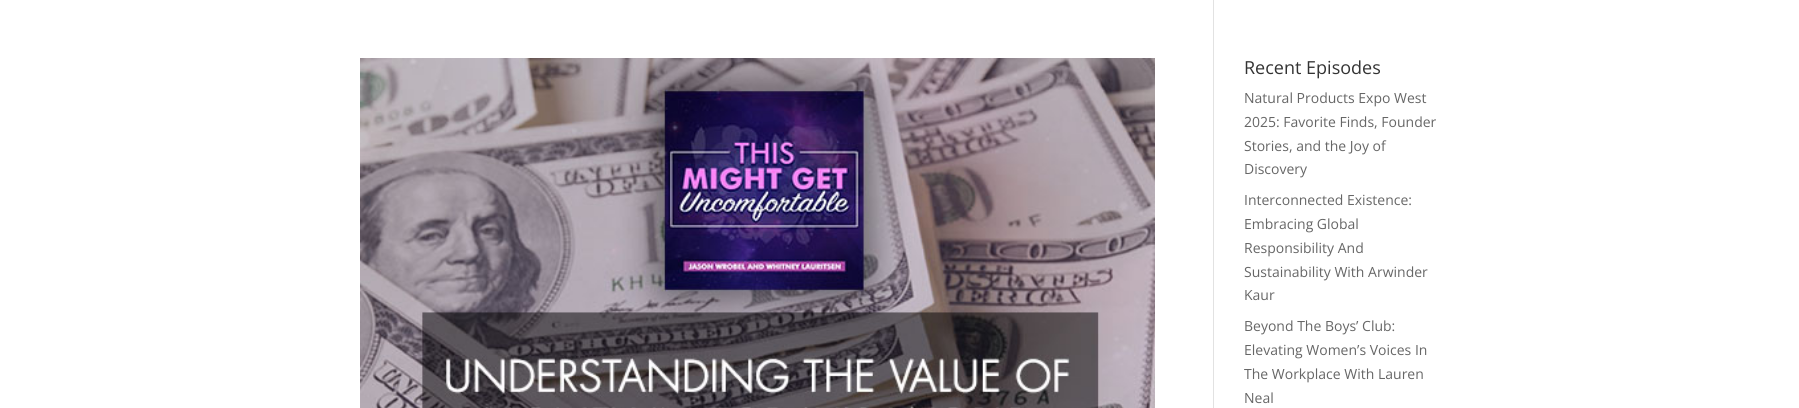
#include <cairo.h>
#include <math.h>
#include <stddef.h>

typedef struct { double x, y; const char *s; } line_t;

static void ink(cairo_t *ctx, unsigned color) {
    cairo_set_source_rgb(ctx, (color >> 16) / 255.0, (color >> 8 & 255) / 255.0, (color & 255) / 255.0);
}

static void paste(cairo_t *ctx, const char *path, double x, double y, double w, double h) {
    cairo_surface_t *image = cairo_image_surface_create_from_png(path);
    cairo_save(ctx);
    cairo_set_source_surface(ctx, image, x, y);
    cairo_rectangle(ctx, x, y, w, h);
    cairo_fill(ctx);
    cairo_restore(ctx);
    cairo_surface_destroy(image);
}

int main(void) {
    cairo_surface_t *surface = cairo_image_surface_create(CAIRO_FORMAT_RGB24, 1799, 408);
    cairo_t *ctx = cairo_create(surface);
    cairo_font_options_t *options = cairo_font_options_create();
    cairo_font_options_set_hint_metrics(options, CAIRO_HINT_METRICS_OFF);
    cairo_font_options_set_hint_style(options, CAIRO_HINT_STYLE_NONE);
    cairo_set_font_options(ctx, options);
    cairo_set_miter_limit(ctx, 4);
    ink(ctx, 0xFFFFFF);
    cairo_paint(ctx);
    ink(ctx, 0xE2E2E2);
    cairo_rectangle(ctx, 1213, 0, 1, 408);
    cairo_fill(ctx);
    paste(ctx, "media/1.png", 360, 58, 795, 350);
    cairo_select_font_face(ctx, "Open Sans", CAIRO_FONT_SLANT_NORMAL, CAIRO_FONT_WEIGHT_NORMAL);
    cairo_set_font_size(ctx, 18);
    ink(ctx, 0x333333);
    cairo_move_to(ctx, 1244, 74);
    cairo_show_text(ctx, "Recent Episodes");
    cairo_set_font_size(ctx, 14);
    ink(ctx, 0x666666);
    {
        static const line_t items[] = {
            {1244, 103, "Natural Products Expo West"},
            {1244, 127, "2025: Favorite Finds, Founder"},
            {1244, 151, "Stories, and the Joy of"},
            {1244, 174, "Discovery"},
            {1244, 205, "Interconnected Existence:"},
            {1244, 229, "Embracing Global"},
            {1244, 253, "Responsibility And"},
            {1244, 277, "Sustainability With Arwinder"},
            {1244, 300, "Kaur"},
            {1244, 331, "Beyond The Boys’ Club:"},
            {1244, 355, "Elevating Women’s Voices In"},
            {1244, 379, "The Workplace With Lauren"},
            {1244, 403, "Neal"},
        };
        for (size_t i = 0; i < sizeof items / sizeof *items; i++) {
            cairo_move_to(ctx, items[i].x, items[i].y);
            cairo_show_text(ctx, items[i].s);
        }
    }
    cairo_surface_write_to_png(surface, "image.png");
    cairo_font_options_destroy(options);
    cairo_destroy(ctx);
    cairo_surface_destroy(surface);
    return 0;
}
